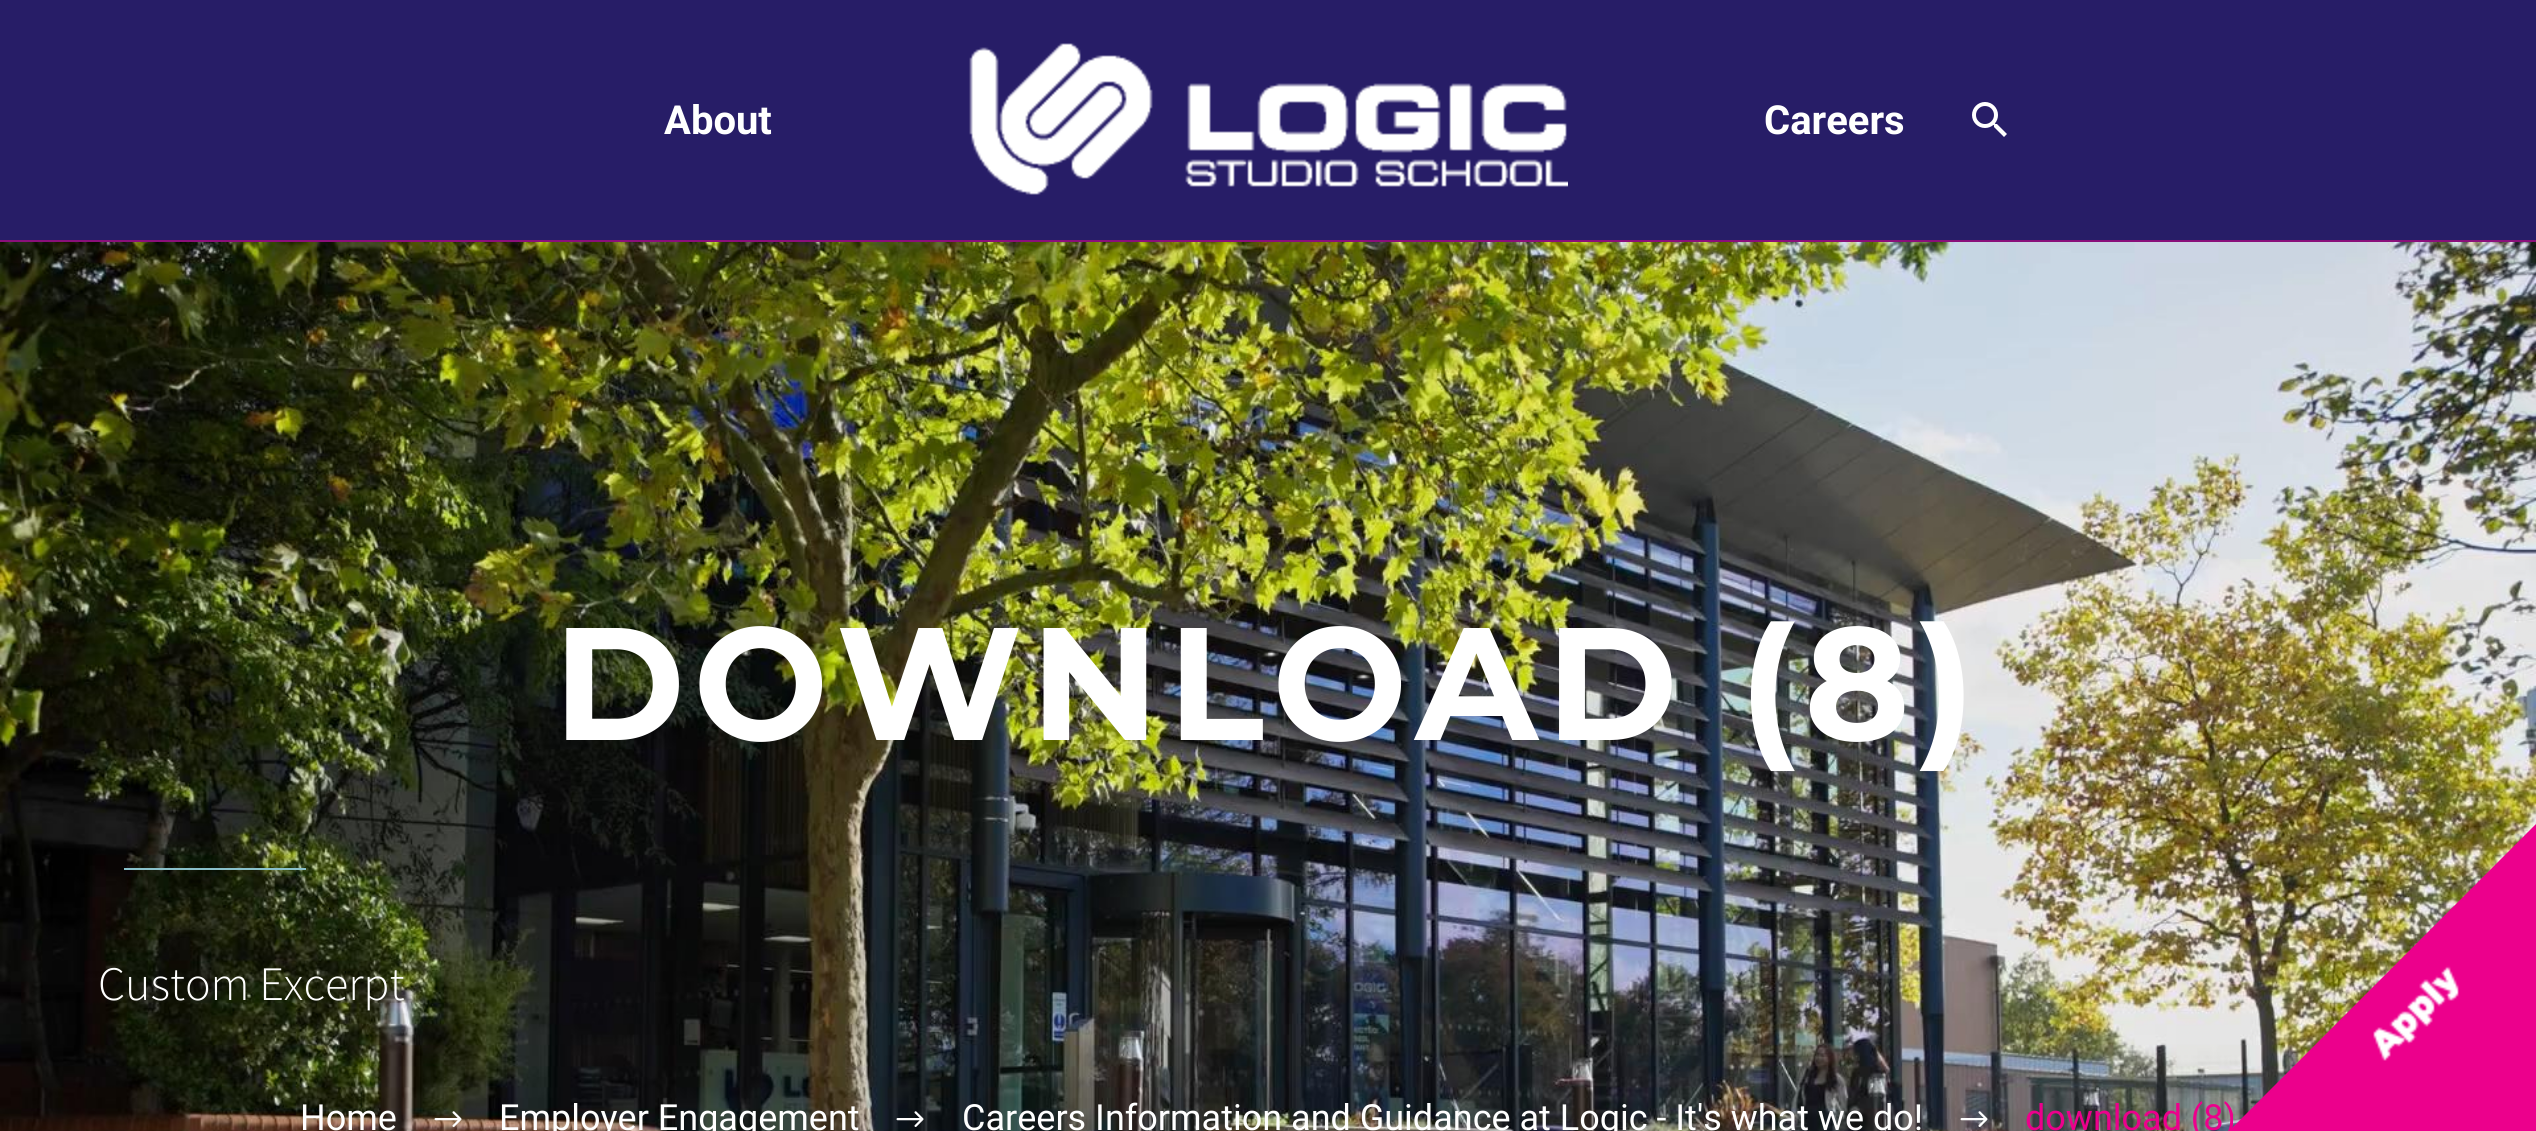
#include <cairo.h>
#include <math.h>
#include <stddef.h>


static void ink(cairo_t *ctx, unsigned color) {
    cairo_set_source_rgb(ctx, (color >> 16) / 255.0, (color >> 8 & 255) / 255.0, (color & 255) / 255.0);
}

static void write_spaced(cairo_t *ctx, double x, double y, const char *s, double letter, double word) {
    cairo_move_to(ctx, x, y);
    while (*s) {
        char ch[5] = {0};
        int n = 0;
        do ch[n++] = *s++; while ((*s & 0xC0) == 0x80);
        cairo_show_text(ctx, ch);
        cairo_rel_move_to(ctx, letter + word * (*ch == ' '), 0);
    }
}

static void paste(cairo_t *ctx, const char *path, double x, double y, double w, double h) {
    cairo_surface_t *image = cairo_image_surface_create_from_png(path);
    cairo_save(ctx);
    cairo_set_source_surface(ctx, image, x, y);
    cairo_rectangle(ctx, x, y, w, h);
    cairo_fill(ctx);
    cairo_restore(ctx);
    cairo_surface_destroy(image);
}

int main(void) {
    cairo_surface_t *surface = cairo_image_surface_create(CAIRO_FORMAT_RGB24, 2536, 1131);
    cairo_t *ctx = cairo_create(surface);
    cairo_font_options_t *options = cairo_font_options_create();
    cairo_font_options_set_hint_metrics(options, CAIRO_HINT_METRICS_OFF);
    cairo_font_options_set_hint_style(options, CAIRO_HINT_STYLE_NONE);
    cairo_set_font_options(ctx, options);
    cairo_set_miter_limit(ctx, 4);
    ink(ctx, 0x271D67);
    cairo_paint(ctx);
    ink(ctx, 0x8A0F7A);
    cairo_rectangle(ctx, 0, 240, 2536, 2);
    cairo_fill(ctx);
    cairo_select_font_face(ctx, "Roboto", CAIRO_FONT_SLANT_NORMAL, CAIRO_FONT_WEIGHT_BOLD);
    cairo_set_font_size(ctx, 40);
    ink(ctx, 0xFFFFFF);
    cairo_move_to(ctx, 664, 134);
    cairo_show_text(ctx, "About");
    paste(ctx, "media/1.png", 969, 43, 599, 152);
    cairo_move_to(ctx, 1764, 134);
    cairo_show_text(ctx, "Careers");
    paste(ctx, "media/2.png", 1972, 102, 35, 35);
    paste(ctx, "media/3.png", 0, 242, 2536, 889);
    cairo_select_font_face(ctx, "Montserrat", CAIRO_FONT_SLANT_NORMAL, CAIRO_FONT_WEIGHT_BOLD);
    cairo_set_font_size(ctx, 160);
    write_spaced(ctx, 553, 740, "DOWNLOAD (8)", 8, 0);
    ink(ctx, 0x89C0CA);
    cairo_rectangle(ctx, 124, 868, 182, 2);
    cairo_fill(ctx);
    cairo_select_font_face(ctx, "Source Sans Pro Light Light", CAIRO_FONT_SLANT_NORMAL, CAIRO_FONT_WEIGHT_NORMAL);
    cairo_set_font_size(ctx, 48);
    ink(ctx, 0xFFFFFF);
    cairo_move_to(ctx, 98, 1000);
    cairo_show_text(ctx, "Custom Excerpt");
    cairo_select_font_face(ctx, "Roboto", CAIRO_FONT_SLANT_NORMAL, CAIRO_FONT_WEIGHT_NORMAL);
    cairo_set_font_size(ctx, 36);
    cairo_move_to(ctx, 300, 1130);
    cairo_show_text(ctx, "Home");
    paste(ctx, "media/4.png", 434, 1111, 28, 16);
    cairo_move_to(ctx, 499, 1130);
    cairo_show_text(ctx, "Employer Engagement");
    paste(ctx, "media/5.png", 896, 1111, 28, 16);
    cairo_move_to(ctx, 962, 1130);
    cairo_show_text(ctx, "Careers Information and Guidance at Logic - It's what we do!");
    paste(ctx, "media/6.png", 1960, 1111, 28, 16);
    ink(ctx, 0xEC008C);
    cairo_move_to(ctx, 2025, 1130);
    cairo_show_text(ctx, "download (8)");
    paste(ctx, "media/7.png", 2230, 824, 306, 307);
    cairo_surface_write_to_png(surface, "image.png");
    cairo_font_options_destroy(options);
    cairo_destroy(ctx);
    cairo_surface_destroy(surface);
    return 0;
}
